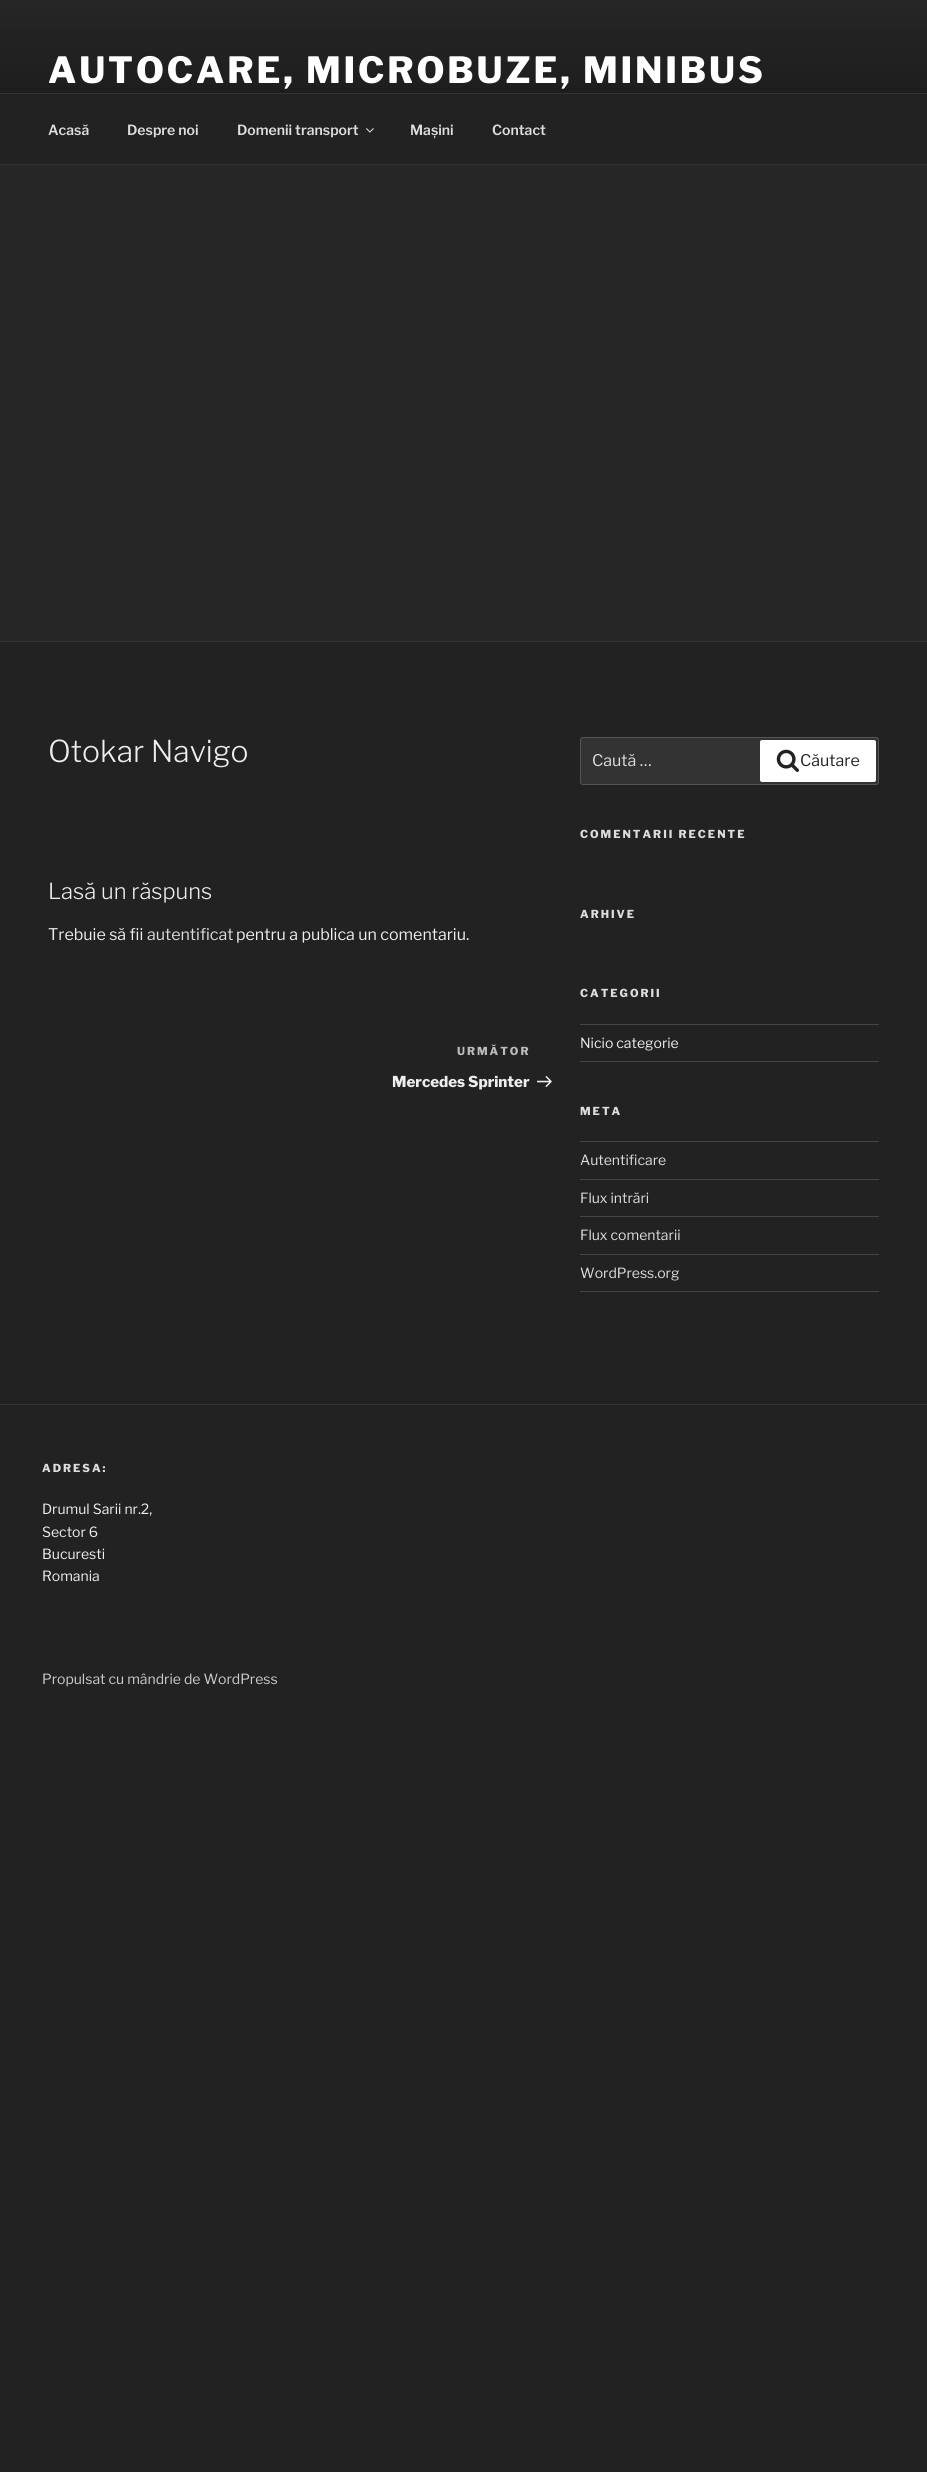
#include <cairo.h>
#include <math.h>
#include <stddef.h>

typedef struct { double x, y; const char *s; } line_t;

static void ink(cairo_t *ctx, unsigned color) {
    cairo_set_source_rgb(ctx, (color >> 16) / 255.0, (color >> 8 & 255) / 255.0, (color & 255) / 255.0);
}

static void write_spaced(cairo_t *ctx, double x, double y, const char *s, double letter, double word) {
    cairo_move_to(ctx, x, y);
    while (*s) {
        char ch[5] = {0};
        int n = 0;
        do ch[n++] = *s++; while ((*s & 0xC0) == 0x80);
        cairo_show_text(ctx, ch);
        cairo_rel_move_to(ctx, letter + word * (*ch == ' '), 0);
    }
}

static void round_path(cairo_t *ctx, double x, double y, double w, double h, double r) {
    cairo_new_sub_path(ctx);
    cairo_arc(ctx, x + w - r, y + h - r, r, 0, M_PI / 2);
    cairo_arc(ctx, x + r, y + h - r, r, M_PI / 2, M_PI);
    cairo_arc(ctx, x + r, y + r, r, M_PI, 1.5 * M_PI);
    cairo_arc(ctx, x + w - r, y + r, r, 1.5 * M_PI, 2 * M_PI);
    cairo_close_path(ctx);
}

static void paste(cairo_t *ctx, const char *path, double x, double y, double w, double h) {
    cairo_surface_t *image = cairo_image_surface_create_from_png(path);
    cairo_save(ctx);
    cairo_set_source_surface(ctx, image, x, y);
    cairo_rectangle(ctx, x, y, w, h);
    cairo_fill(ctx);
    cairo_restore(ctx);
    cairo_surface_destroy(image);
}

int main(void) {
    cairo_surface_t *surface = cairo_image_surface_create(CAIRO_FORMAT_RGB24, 927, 2472);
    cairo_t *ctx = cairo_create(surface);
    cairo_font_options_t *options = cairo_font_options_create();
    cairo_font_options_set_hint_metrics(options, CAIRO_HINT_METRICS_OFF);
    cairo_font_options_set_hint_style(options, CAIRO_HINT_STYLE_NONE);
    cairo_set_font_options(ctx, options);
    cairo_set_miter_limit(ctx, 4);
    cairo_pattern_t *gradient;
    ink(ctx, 0x222222);
    cairo_paint(ctx);
    gradient = cairo_pattern_create_linear(464, 0, 464, 165);
    cairo_pattern_add_color_stop_rgba(gradient, 0, 0.149, 0.149, 0.149, 1);
    cairo_pattern_add_color_stop_rgba(gradient, 0.75, 0.106, 0.106, 0.106, 1);
    cairo_pattern_add_color_stop_rgba(gradient, 1, 0.106, 0.106, 0.106, 1);
    cairo_set_source(ctx, gradient);
    cairo_pattern_destroy(gradient);
    cairo_rectangle(ctx, 0, 0, 927, 93);
    cairo_fill(ctx);
    cairo_select_font_face(ctx, "Libre Franklin ExtraBold", CAIRO_FONT_SLANT_NORMAL, CAIRO_FONT_WEIGHT_NORMAL);
    cairo_set_font_size(ctx, 36);
    ink(ctx, 0xFFFFFF);
    write_spaced(ctx, 48, 83, "AUTOCARE, MICROBUZE, MINIBUS", 2.9, 0);
    ink(ctx, 0x333333);
    cairo_rectangle(ctx, 0, 93, 927, 1);
    cairo_fill(ctx);
    cairo_rectangle(ctx, 0, 164, 927, 1);
    cairo_fill(ctx);
    cairo_select_font_face(ctx, "Libre Franklin SemiBold", CAIRO_FONT_SLANT_NORMAL, CAIRO_FONT_WEIGHT_NORMAL);
    cairo_set_font_size(ctx, 14);
    ink(ctx, 0xDDDDDD);
    {
        static const line_t items[] = {
            {48, 135, "Acasă"},
            {127, 135, "Despre noi"},
            {237, 135, "Domenii transport"},
        };
        for (size_t i = 0; i < sizeof items / sizeof *items; i++) {
            cairo_move_to(ctx, items[i].x, items[i].y);
            cairo_show_text(ctx, items[i].s);
        }
    }
    paste(ctx, "media/1.png", 366, 128, 8, 5);
    cairo_move_to(ctx, 410, 135);
    cairo_show_text(ctx, "Mașini");
    cairo_move_to(ctx, 492, 135);
    cairo_show_text(ctx, "Contact");
    ink(ctx, 0x262626);
    cairo_rectangle(ctx, 0, 165, 927, 476);
    cairo_fill(ctx);
    ink(ctx, 0x333333);
    cairo_rectangle(ctx, 0, 641, 927, 1);
    cairo_fill(ctx);
    cairo_select_font_face(ctx, "Libre Franklin Light", CAIRO_FONT_SLANT_NORMAL, CAIRO_FONT_WEIGHT_NORMAL);
    cairo_set_font_size(ctx, 30);
    ink(ctx, 0xEEEEEE);
    cairo_move_to(ctx, 48, 762);
    cairo_show_text(ctx, "Otokar Navigo");
    cairo_set_font_size(ctx, 22);
    cairo_move_to(ctx, 48, 899);
    cairo_show_text(ctx, "Lasă un răspuns");
    cairo_select_font_face(ctx, "Libre Franklin", CAIRO_FONT_SLANT_NORMAL, CAIRO_FONT_WEIGHT_NORMAL);
    cairo_set_font_size(ctx, 16);
    cairo_move_to(ctx, 48, 940);
    cairo_show_text(ctx, "Trebuie să fii");
    ink(ctx, 0xDDDDDD);
    cairo_move_to(ctx, 147, 940);
    cairo_show_text(ctx, "autentificat");
    ink(ctx, 0xEEEEEE);
    cairo_move_to(ctx, 236, 940);
    cairo_show_text(ctx, "pentru a publica un comentariu.");
    cairo_select_font_face(ctx, "Libre Franklin ExtraBold", CAIRO_FONT_SLANT_NORMAL, CAIRO_FONT_WEIGHT_NORMAL);
    cairo_set_font_size(ctx, 11);
    ink(ctx, 0xBBBBBB);
    write_spaced(ctx, 457, 1055, "URMĂTOR", 2, 0);
    cairo_set_font_size(ctx, 15);
    ink(ctx, 0xEEEEEE);
    cairo_move_to(ctx, 392, 1087);
    cairo_show_text(ctx, "Mercedes Sprinter");
    paste(ctx, "media/2.png", 537, 1076, 15, 12);
    ink(ctx, 0x333333);
    round_path(ctx, 580.5, 737.5, 298, 47, 2.5);
    cairo_fill_preserve(ctx);
    ink(ctx, 0x555555);
    cairo_set_line_width(ctx, 1);
    cairo_stroke(ctx);
    cairo_select_font_face(ctx, "Libre Franklin", CAIRO_FONT_SLANT_NORMAL, CAIRO_FONT_WEIGHT_NORMAL);
    cairo_set_font_size(ctx, 16);
    ink(ctx, 0xDDDDDD);
    cairo_move_to(ctx, 592, 766);
    cairo_show_text(ctx, "Caută …");
    ink(ctx, 0xFFFFFF);
    round_path(ctx, 760, 740, 116, 42, 2);
    cairo_fill(ctx);
    paste(ctx, "media/3.png", 776, 749, 23, 23);
    ink(ctx, 0x222222);
    cairo_move_to(ctx, 800, 766);
    cairo_show_text(ctx, "Căutare");
    cairo_select_font_face(ctx, "Libre Franklin ExtraBold", CAIRO_FONT_SLANT_NORMAL, CAIRO_FONT_WEIGHT_NORMAL);
    cairo_set_font_size(ctx, 11);
    ink(ctx, 0xDDDDDD);
    {
        static const line_t items[] = {
            {580, 838, "COMENTARII RECENTE"},
            {580, 918, "ARHIVE"},
            {580, 997, "CATEGORII"},
        };
        for (size_t i = 0; i < sizeof items / sizeof *items; i++) {
            write_spaced(ctx, items[i].x, items[i].y, items[i].s, 2, 0);
        }
    }
    ink(ctx, 0x444444);
    cairo_rectangle(ctx, 580, 1024, 299, 1);
    cairo_fill(ctx);
    cairo_rectangle(ctx, 580, 1061, 299, 1);
    cairo_fill(ctx);
    cairo_select_font_face(ctx, "Libre Franklin", CAIRO_FONT_SLANT_NORMAL, CAIRO_FONT_WEIGHT_NORMAL);
    cairo_set_font_size(ctx, 14);
    ink(ctx, 0xEEEEEE);
    cairo_move_to(ctx, 580, 1048);
    cairo_show_text(ctx, "Nicio categorie");
    cairo_select_font_face(ctx, "Libre Franklin ExtraBold", CAIRO_FONT_SLANT_NORMAL, CAIRO_FONT_WEIGHT_NORMAL);
    cairo_set_font_size(ctx, 11);
    ink(ctx, 0xDDDDDD);
    write_spaced(ctx, 580, 1115, "META", 2, 0);
    ink(ctx, 0x444444);
    cairo_rectangle(ctx, 580, 1141, 299, 1);
    cairo_fill(ctx);
    cairo_rectangle(ctx, 580, 1179, 299, 1);
    cairo_fill(ctx);
    cairo_select_font_face(ctx, "Libre Franklin", CAIRO_FONT_SLANT_NORMAL, CAIRO_FONT_WEIGHT_NORMAL);
    cairo_set_font_size(ctx, 14);
    ink(ctx, 0xDDDDDD);
    cairo_move_to(ctx, 580, 1165);
    cairo_show_text(ctx, "Autentificare");
    ink(ctx, 0x444444);
    cairo_rectangle(ctx, 580, 1216, 299, 1);
    cairo_fill(ctx);
    ink(ctx, 0xDDDDDD);
    cairo_move_to(ctx, 580, 1203);
    cairo_show_text(ctx, "Flux intrări");
    ink(ctx, 0x444444);
    cairo_rectangle(ctx, 580, 1254, 299, 1);
    cairo_fill(ctx);
    ink(ctx, 0xDDDDDD);
    cairo_move_to(ctx, 580, 1240);
    cairo_show_text(ctx, "Flux comentarii");
    ink(ctx, 0x444444);
    cairo_rectangle(ctx, 580, 1291, 299, 1);
    cairo_fill(ctx);
    ink(ctx, 0xDDDDDD);
    cairo_move_to(ctx, 580, 1278);
    cairo_show_text(ctx, "WordPress.org");
    ink(ctx, 0x333333);
    cairo_rectangle(ctx, 0, 1404, 927, 1);
    cairo_fill(ctx);
    cairo_select_font_face(ctx, "Libre Franklin ExtraBold", CAIRO_FONT_SLANT_NORMAL, CAIRO_FONT_WEIGHT_NORMAL);
    cairo_set_font_size(ctx, 11);
    ink(ctx, 0xDDDDDD);
    write_spaced(ctx, 42, 1472, "ADRESA:", 2, 0);
    cairo_select_font_face(ctx, "Libre Franklin", CAIRO_FONT_SLANT_NORMAL, CAIRO_FONT_WEIGHT_NORMAL);
    cairo_set_font_size(ctx, 14);
    ink(ctx, 0xEEEEEE);
    {
        static const line_t items[] = {
            {42, 1514, "Drumul Sarii nr.2,"},
            {42, 1537, "Sector 6"},
            {42, 1559, "Bucuresti"},
            {42, 1581, "Romania"},
        };
        for (size_t i = 0; i < sizeof items / sizeof *items; i++) {
            cairo_move_to(ctx, items[i].x, items[i].y);
            cairo_show_text(ctx, items[i].s);
        }
    }
    ink(ctx, 0xCCCCCC);
    cairo_move_to(ctx, 42, 1684);
    cairo_show_text(ctx, "Propulsat cu mândrie de WordPress");
    cairo_surface_write_to_png(surface, "image.png");
    cairo_font_options_destroy(options);
    cairo_destroy(ctx);
    cairo_surface_destroy(surface);
    return 0;
}
